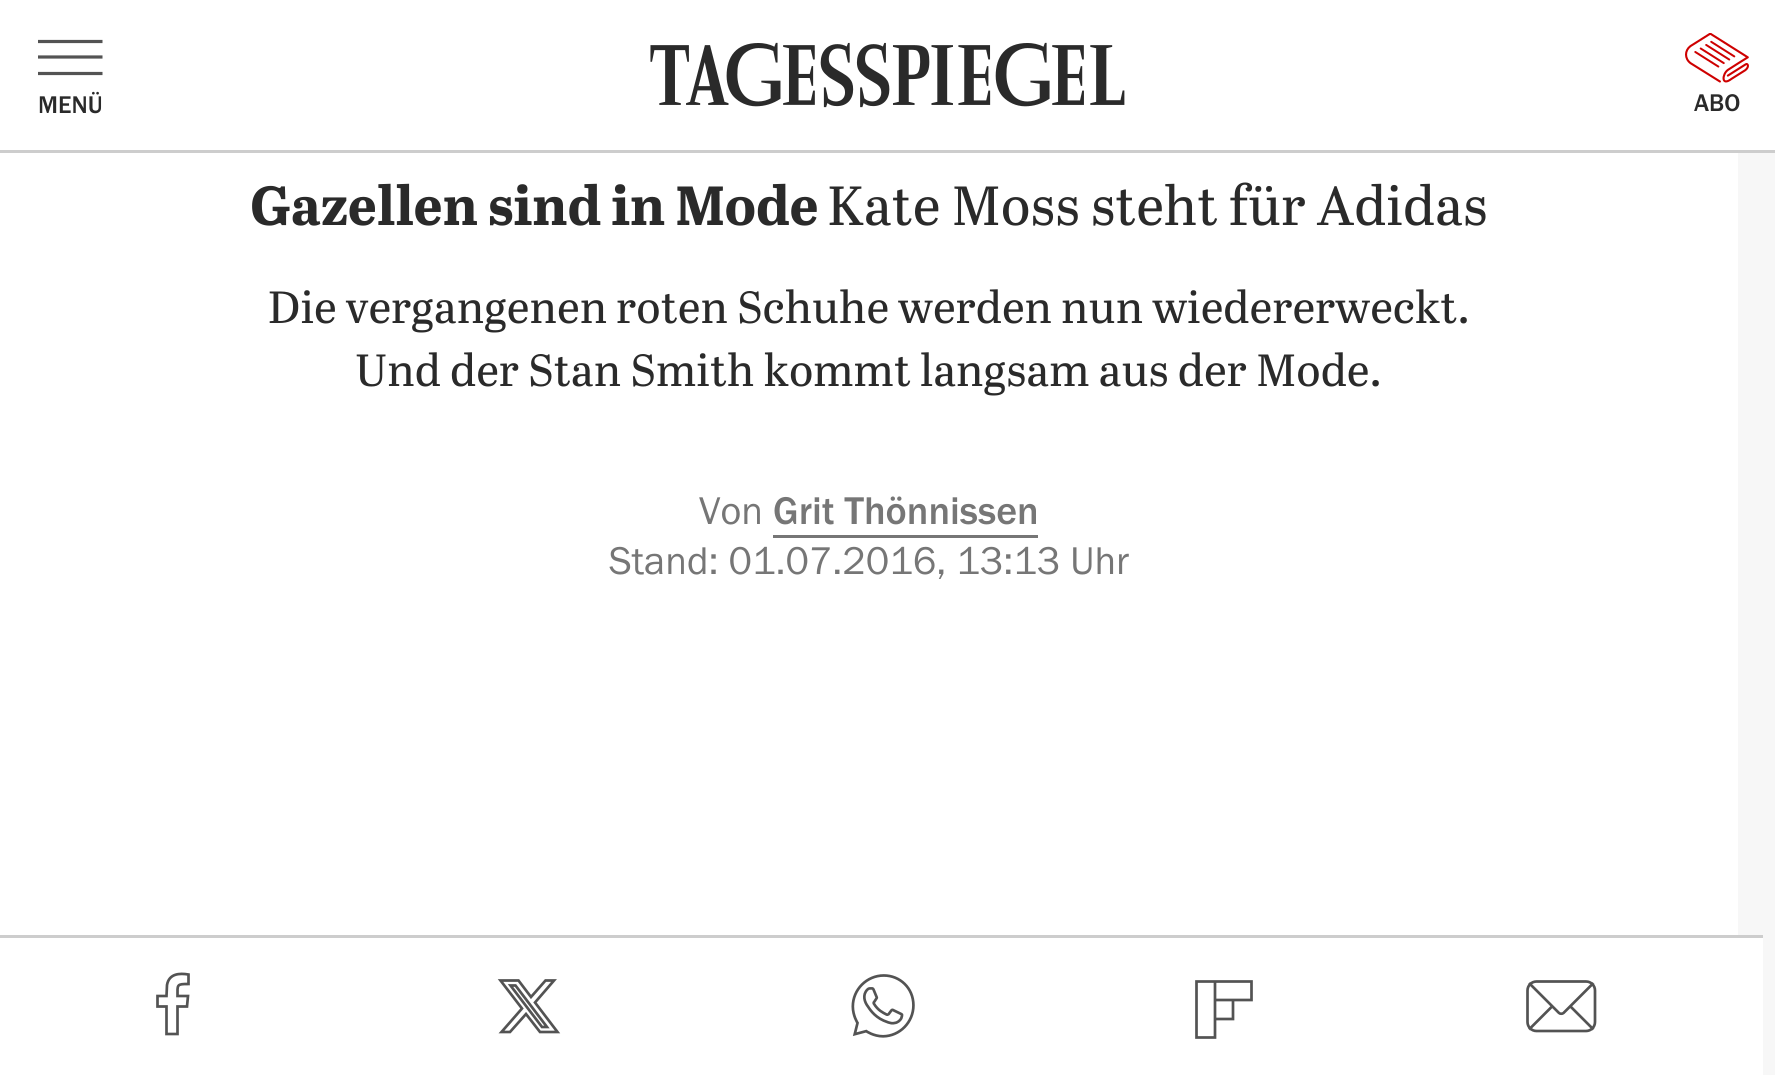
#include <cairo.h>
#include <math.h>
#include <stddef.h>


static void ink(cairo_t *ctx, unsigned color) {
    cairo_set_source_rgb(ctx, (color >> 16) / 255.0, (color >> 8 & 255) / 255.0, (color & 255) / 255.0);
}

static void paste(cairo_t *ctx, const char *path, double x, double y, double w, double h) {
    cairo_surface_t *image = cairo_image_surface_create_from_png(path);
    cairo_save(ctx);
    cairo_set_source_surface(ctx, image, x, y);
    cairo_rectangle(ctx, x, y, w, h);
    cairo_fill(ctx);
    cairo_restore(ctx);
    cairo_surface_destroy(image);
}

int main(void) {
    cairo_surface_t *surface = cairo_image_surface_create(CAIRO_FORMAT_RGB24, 1775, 1075);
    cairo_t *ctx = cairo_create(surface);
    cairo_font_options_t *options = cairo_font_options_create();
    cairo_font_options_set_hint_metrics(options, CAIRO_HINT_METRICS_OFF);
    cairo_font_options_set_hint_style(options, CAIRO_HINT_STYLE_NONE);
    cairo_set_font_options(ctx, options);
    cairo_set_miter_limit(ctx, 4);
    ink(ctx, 0xF7F7F7);
    cairo_paint(ctx);
    ink(ctx, 0xFFFFFF);
    cairo_rectangle(ctx, 0, 0, 1775, 150);
    cairo_fill(ctx);
    ink(ctx, 0xCDCDCD);
    cairo_rectangle(ctx, 0, 150, 1775, 3);
    cairo_fill(ctx);
    cairo_save(ctx);
    cairo_rectangle(ctx, 38, 38, 65, 40);
    cairo_clip(ctx);
    cairo_new_path(ctx);
    cairo_move_to(ctx, 37.5, 41.5);
    cairo_line_to(ctx, 102.5, 41.5);
    cairo_move_to(ctx, 37.5, 57);
    cairo_line_to(ctx, 102.5, 57);
    cairo_move_to(ctx, 37.5, 73.5);
    cairo_line_to(ctx, 102.5, 73.5);
    ink(ctx, 0x535353);
    cairo_set_line_width(ctx, 3.2);
    cairo_stroke(ctx);
    cairo_restore(ctx);
    cairo_select_font_face(ctx, "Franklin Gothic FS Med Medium", CAIRO_FONT_SLANT_NORMAL, CAIRO_FONT_WEIGHT_NORMAL);
    cairo_set_font_size(ctx, 25);
    ink(ctx, 0x2A2A2A);
    cairo_move_to(ctx, 38, 113);
    cairo_show_text(ctx, "MENÜ");
    paste(ctx, "media/1.png", 650, 42, 475, 66);
    paste(ctx, "media/2.png", 1685, 33, 64, 50);
    cairo_move_to(ctx, 1694, 111);
    cairo_show_text(ctx, "ABO");
    ink(ctx, 0xFFFFFF);
    cairo_rectangle(ctx, 0, 153, 1738, 782);
    cairo_fill(ctx);
    cairo_select_font_face(ctx, "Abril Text", CAIRO_FONT_SLANT_NORMAL, CAIRO_FONT_WEIGHT_BOLD);
    cairo_set_font_size(ctx, 55);
    ink(ctx, 0x2A2A2A);
    cairo_move_to(ctx, 250, 225);
    cairo_show_text(ctx, "Gazellen sind in Mode");
    cairo_select_font_face(ctx, "Abril Text", CAIRO_FONT_SLANT_NORMAL, CAIRO_FONT_WEIGHT_NORMAL);
    cairo_move_to(ctx, 827, 225);
    cairo_show_text(ctx, "Kate Moss steht für Adidas");
    cairo_set_font_size(ctx, 45);
    cairo_move_to(ctx, 268, 323);
    cairo_show_text(ctx, "Die vergangenen roten Schuhe werden nun wiedererweckt.");
    cairo_move_to(ctx, 355, 386);
    cairo_show_text(ctx, "Und der Stan Smith kommt langsam aus der Mode.");
    cairo_select_font_face(ctx, "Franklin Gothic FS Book", CAIRO_FONT_SLANT_NORMAL, CAIRO_FONT_WEIGHT_NORMAL);
    cairo_set_font_size(ctx, 40);
    ink(ctx, 0x767676);
    cairo_move_to(ctx, 699, 524);
    cairo_show_text(ctx, "Von");
    cairo_select_font_face(ctx, "Franklin Gothic FS Med Medium", CAIRO_FONT_SLANT_NORMAL, CAIRO_FONT_WEIGHT_NORMAL);
    cairo_move_to(ctx, 773, 524);
    cairo_show_text(ctx, "Grit Thönnissen");
    cairo_rectangle(ctx, 773, 535, 265, 3);
    cairo_fill(ctx);
    cairo_select_font_face(ctx, "Franklin Gothic FS Book", CAIRO_FONT_SLANT_NORMAL, CAIRO_FONT_WEIGHT_NORMAL);
    cairo_move_to(ctx, 609, 574);
    cairo_show_text(ctx, "Stand: 01.07.2016, 13:13 Uhr");
    ink(ctx, 0xFFFFFF);
    cairo_rectangle(ctx, 0, 938, 1763, 137);
    cairo_fill(ctx);
    ink(ctx, 0xCDCDCD);
    cairo_rectangle(ctx, 0, 935, 1763, 3);
    cairo_fill(ctx);
    cairo_new_path(ctx);
    cairo_move_to(ctx, 177.5, 1034);
    cairo_line_to(ctx, 177.5, 1006.5);
    cairo_line_to(ctx, 187, 1006.5);
    cairo_line_to(ctx, 188, 996);
    cairo_line_to(ctx, 177.5, 996);
    cairo_curve_to(ctx, 177.5, 984.5, 176.5, 984, 188.5, 984);
    cairo_line_to(ctx, 188.5, 974.5);
    cairo_curve_to(ctx, 179.5, 973, 169, 973.5, 167, 985);
    cairo_line_to(ctx, 166.5, 996);
    cairo_line_to(ctx, 157.5, 996);
    cairo_line_to(ctx, 157.5, 1006.5);
    cairo_line_to(ctx, 166.5, 1006.5);
    cairo_line_to(ctx, 166.5, 1034);
    cairo_close_path(ctx);
    ink(ctx, 0x535353);
    cairo_set_line_width(ctx, 2.7);
    cairo_stroke(ctx);
    cairo_new_path(ctx);
    cairo_move_to(ctx, 545.5, 980.5);
    cairo_line_to(ctx, 554, 980.5);
    cairo_line_to(ctx, 535, 1002.5);
    cairo_line_to(ctx, 557.5, 1032);
    cairo_line_to(ctx, 540, 1032);
    cairo_line_to(ctx, 526, 1014);
    cairo_line_to(ctx, 510, 1032);
    cairo_line_to(ctx, 501.5, 1032);
    cairo_line_to(ctx, 522, 1008.5);
    cairo_line_to(ctx, 500.5, 980.5);
    cairo_line_to(ctx, 518.5, 980.5);
    cairo_line_to(ctx, 531, 997);
    cairo_close_path(ctx);
    cairo_move_to(ctx, 542, 1027);
    cairo_line_to(ctx, 547, 1027);
    cairo_line_to(ctx, 515.5, 985.5);
    cairo_line_to(ctx, 510.5, 985.5);
    cairo_close_path(ctx);
    cairo_stroke(ctx);
    paste(ctx, "media/3.png", 851, 974, 64, 64);
    cairo_new_path(ctx);
    cairo_move_to(ctx, 1251.5, 1000);
    cairo_line_to(ctx, 1233, 1000);
    cairo_line_to(ctx, 1233, 1019);
    cairo_line_to(ctx, 1215, 1019);
    cairo_line_to(ctx, 1215, 1037.5);
    cairo_line_to(ctx, 1196.5, 1037.5);
    cairo_line_to(ctx, 1196.5, 981.5);
    cairo_line_to(ctx, 1251.5, 981.5);
    cairo_close_path(ctx);
    cairo_move_to(ctx, 1233.5, 981.5);
    cairo_line_to(ctx, 1215, 981.5);
    cairo_line_to(ctx, 1215, 1000);
    cairo_line_to(ctx, 1251.5, 1000);
    cairo_line_to(ctx, 1251.5, 981.5);
    cairo_close_path(ctx);
    cairo_move_to(ctx, 1215, 1000);
    cairo_line_to(ctx, 1233, 1000);
    cairo_line_to(ctx, 1233, 1019);
    cairo_line_to(ctx, 1215, 1019);
    cairo_close_path(ctx);
    cairo_stroke(ctx);
    cairo_new_path(ctx);
    cairo_move_to(ctx, 1586, 981.5);
    cairo_curve_to(ctx, 1591, 981.5, 1595, 985.5, 1595, 990.5);
    cairo_line_to(ctx, 1595, 1022);
    cairo_curve_to(ctx, 1595, 1027, 1591, 1031, 1586, 1031);
    cairo_line_to(ctx, 1536.5, 1031);
    cairo_curve_to(ctx, 1531.5, 1031, 1527.5, 1027, 1527.5, 1022);
    cairo_line_to(ctx, 1527.5, 990.5);
    cairo_curve_to(ctx, 1527.5, 985.5, 1531.5, 981.5, 1536.5, 981.5);
    cairo_close_path(ctx);
    cairo_move_to(ctx, 1593.5, 983);
    cairo_line_to(ctx, 1563.5, 1013);
    cairo_curve_to(ctx, 1562.5, 1014, 1560, 1014, 1559, 1013);
    cairo_line_to(ctx, 1529, 983);
    cairo_move_to(ctx, 1529, 1029.5);
    cairo_line_to(ctx, 1552.5, 1006);
    cairo_move_to(ctx, 1593.5, 1029.5);
    cairo_line_to(ctx, 1570, 1006);
    cairo_stroke(ctx);
    cairo_surface_write_to_png(surface, "image.png");
    cairo_font_options_destroy(options);
    cairo_destroy(ctx);
    cairo_surface_destroy(surface);
    return 0;
}
